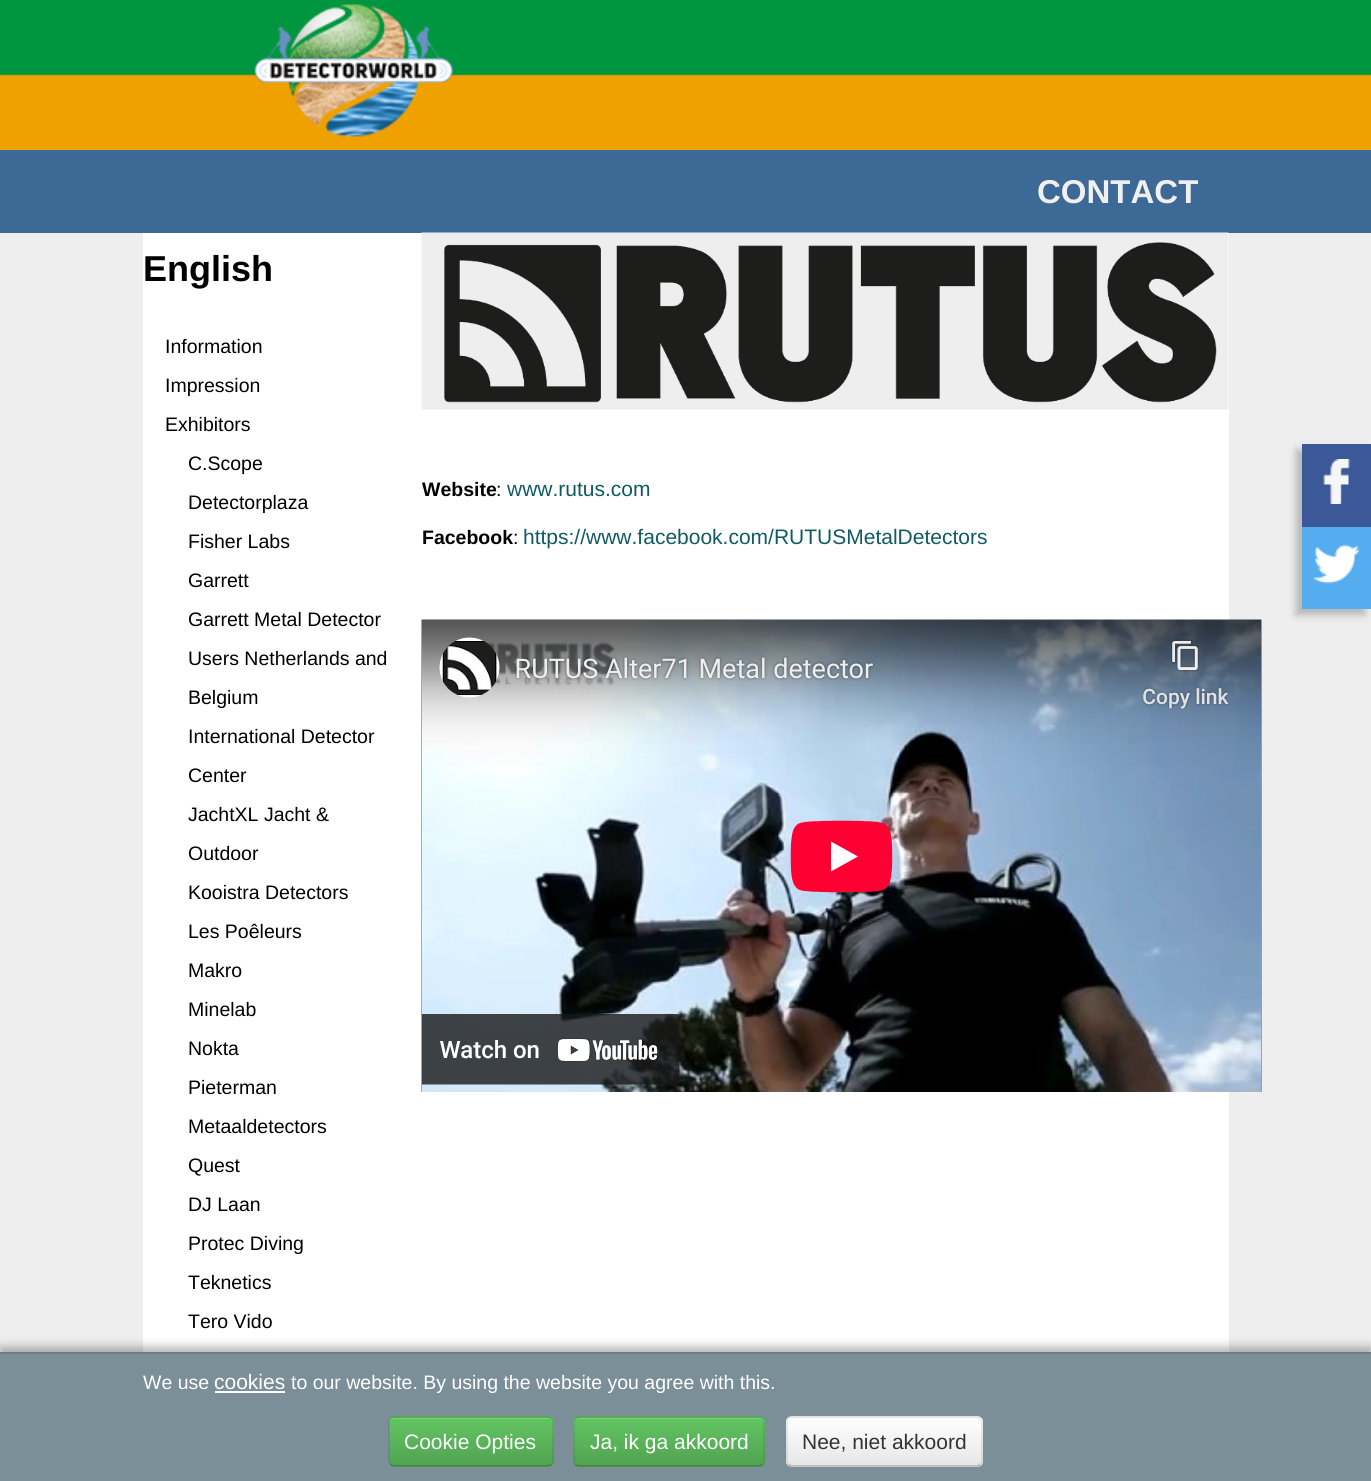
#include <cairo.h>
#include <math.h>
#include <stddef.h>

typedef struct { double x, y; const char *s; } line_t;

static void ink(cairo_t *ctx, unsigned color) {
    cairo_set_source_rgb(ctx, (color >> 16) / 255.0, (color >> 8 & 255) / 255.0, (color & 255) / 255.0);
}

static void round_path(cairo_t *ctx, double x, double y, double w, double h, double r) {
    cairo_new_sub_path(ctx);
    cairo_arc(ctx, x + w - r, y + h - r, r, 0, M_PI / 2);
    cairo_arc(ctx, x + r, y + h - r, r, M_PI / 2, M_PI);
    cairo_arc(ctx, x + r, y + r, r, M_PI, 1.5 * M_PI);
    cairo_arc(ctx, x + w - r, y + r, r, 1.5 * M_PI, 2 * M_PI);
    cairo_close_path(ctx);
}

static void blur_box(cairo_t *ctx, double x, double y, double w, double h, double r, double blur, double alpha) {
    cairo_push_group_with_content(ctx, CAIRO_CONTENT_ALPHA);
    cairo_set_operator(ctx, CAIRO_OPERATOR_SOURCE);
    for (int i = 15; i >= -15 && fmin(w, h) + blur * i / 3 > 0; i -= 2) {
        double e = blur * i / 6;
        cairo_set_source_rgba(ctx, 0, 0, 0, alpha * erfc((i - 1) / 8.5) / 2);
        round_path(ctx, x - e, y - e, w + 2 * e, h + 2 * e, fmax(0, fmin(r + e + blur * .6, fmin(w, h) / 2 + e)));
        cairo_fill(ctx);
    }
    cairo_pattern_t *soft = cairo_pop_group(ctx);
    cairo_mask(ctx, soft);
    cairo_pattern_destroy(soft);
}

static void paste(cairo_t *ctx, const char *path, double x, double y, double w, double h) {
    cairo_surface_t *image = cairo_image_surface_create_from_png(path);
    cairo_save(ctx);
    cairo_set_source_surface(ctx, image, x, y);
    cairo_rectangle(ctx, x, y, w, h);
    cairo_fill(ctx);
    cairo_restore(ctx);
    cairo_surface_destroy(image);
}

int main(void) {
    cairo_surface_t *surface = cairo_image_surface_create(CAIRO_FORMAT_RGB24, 1371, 1481);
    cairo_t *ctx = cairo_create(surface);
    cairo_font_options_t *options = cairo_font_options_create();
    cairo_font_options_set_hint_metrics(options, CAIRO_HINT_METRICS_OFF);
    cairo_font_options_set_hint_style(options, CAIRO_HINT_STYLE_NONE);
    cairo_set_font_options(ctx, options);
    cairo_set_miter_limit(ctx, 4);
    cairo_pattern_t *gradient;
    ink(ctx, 0xEEEEEE);
    cairo_paint(ctx);
    paste(ctx, "media/1.png", 0, 0, 1371, 150);
    paste(ctx, "media/2.png", 254, 4, 200, 133);
    ink(ctx, 0x3D6997);
    cairo_rectangle(ctx, 0, 150, 1371, 83);
    cairo_fill(ctx);
    cairo_select_font_face(ctx, "Liberation Sans", CAIRO_FONT_SLANT_NORMAL, CAIRO_FONT_WEIGHT_BOLD);
    cairo_set_font_size(ctx, 33);
    ink(ctx, 0xF0F0F0);
    cairo_move_to(ctx, 1037, 203);
    cairo_show_text(ctx, "CONTACT");
    ink(ctx, 0xFFFFFF);
    cairo_rectangle(ctx, 143, 233, 1086, 1119);
    cairo_fill(ctx);
    cairo_set_font_size(ctx, 36);
    ink(ctx, 0x000000);
    cairo_move_to(ctx, 143, 281);
    cairo_show_text(ctx, "English");
    cairo_select_font_face(ctx, "Liberation Sans", CAIRO_FONT_SLANT_NORMAL, CAIRO_FONT_WEIGHT_NORMAL);
    cairo_set_font_size(ctx, 19.5);
    {
        static const line_t items[] = {
            {165, 353, "Information"},
            {165, 392, "Impression"},
            {165, 431, "Exhibitors"},
            {188, 470, "C.Scope"},
            {188, 509, "Detectorplaza"},
            {188, 548, "Fisher Labs"},
            {188, 587, "Garrett"},
            {188, 626, "Garrett Metal Detector"},
            {188, 665, "Users Netherlands and"},
            {188, 704, "Belgium"},
            {188, 743, "International Detector"},
            {188, 782, "Center"},
            {188, 821, "JachtXL Jacht &"},
            {188, 860, "Outdoor"},
            {188, 899, "Kooistra Detectors"},
            {188, 938, "Les Poêleurs"},
            {188, 977, "Makro"},
            {188, 1016, "Minelab"},
            {188, 1055, "Nokta"},
            {188, 1094, "Pieterman"},
            {188, 1133, "Metaaldetectors"},
            {188, 1172, "Quest"},
            {188, 1211, "DJ Laan"},
            {188, 1250, "Protec Diving"},
            {188, 1289, "Teknetics"},
            {188, 1328, "Tero Vido"},
        };
        for (size_t i = 0; i < sizeof items / sizeof *items; i++) {
            cairo_move_to(ctx, items[i].x, items[i].y);
            cairo_show_text(ctx, items[i].s);
        }
    }
    paste(ctx, "media/3.png", 421, 232, 808, 178);
    cairo_select_font_face(ctx, "Liberation Sans", CAIRO_FONT_SLANT_NORMAL, CAIRO_FONT_WEIGHT_BOLD);
    cairo_move_to(ctx, 422, 496);
    cairo_show_text(ctx, "Website");
    cairo_select_font_face(ctx, "Liberation Sans", CAIRO_FONT_SLANT_NORMAL, CAIRO_FONT_WEIGHT_NORMAL);
    cairo_move_to(ctx, 496, 496);
    cairo_show_text(ctx, ":");
    cairo_set_font_size(ctx, 21);
    ink(ctx, 0x105B63);
    cairo_move_to(ctx, 507, 496);
    cairo_show_text(ctx, "www.rutus.com");
    cairo_select_font_face(ctx, "Liberation Sans", CAIRO_FONT_SLANT_NORMAL, CAIRO_FONT_WEIGHT_BOLD);
    cairo_set_font_size(ctx, 19.5);
    ink(ctx, 0x000000);
    cairo_move_to(ctx, 422, 544);
    cairo_show_text(ctx, "Facebook");
    cairo_select_font_face(ctx, "Liberation Sans", CAIRO_FONT_SLANT_NORMAL, CAIRO_FONT_WEIGHT_NORMAL);
    cairo_move_to(ctx, 513, 544);
    cairo_show_text(ctx, ":");
    cairo_set_font_size(ctx, 21);
    ink(ctx, 0x105B63);
    cairo_move_to(ctx, 523, 544);
    cairo_show_text(ctx, "https://www.facebook.com/RUTUSMetalDetectors");
    paste(ctx, "media/4.png", 421, 619, 841, 473);
    ink(ctx, 0x323232);
    blur_box(ctx, 1296, 450, 69, 165, 0, 4, 0.3);
    ink(ctx, 0x3B5998);
    cairo_rectangle(ctx, 1302, 444, 69, 83);
    cairo_fill(ctx);
    paste(ctx, "media/5.png", 1322, 459, 29, 45);
    ink(ctx, 0x55ACEE);
    cairo_rectangle(ctx, 1302, 527, 69, 82);
    cairo_fill(ctx);
    paste(ctx, "media/6.png", 1314, 544, 45, 40);
    ink(ctx, 0x000000);
    blur_box(ctx, 0, 1347, 1371, 131, 0, 5, 0.3);
    ink(ctx, 0x7A8F98);
    cairo_rectangle(ctx, 0, 1354, 1371, 127);
    cairo_fill(ctx);
    ink(ctx, 0x697E87);
    cairo_rectangle(ctx, 0, 1352, 1371, 2);
    cairo_fill(ctx);
    cairo_set_font_size(ctx, 19.5);
    ink(ctx, 0xFFFFFF);
    cairo_move_to(ctx, 143, 1389);
    cairo_show_text(ctx, "We use");
    cairo_set_font_size(ctx, 21);
    cairo_move_to(ctx, 214, 1389);
    cairo_show_text(ctx, "cookies");
    cairo_rectangle(ctx, 215, 1391, 70, 2);
    cairo_fill(ctx);
    cairo_set_font_size(ctx, 19.5);
    cairo_move_to(ctx, 291, 1389);
    cairo_show_text(ctx, "to our website. By using the website you agree with this.");
    ink(ctx, 0x5BB75B);
    round_path(ctx, 389, 1416, 165, 51, 6);
    cairo_fill(ctx);
    cairo_save(ctx);
    round_path(ctx, 389, 1416, 165, 51, 6);
    cairo_clip(ctx);
    gradient = cairo_pattern_create_linear(471, 1418, 471, 1466);
    cairo_pattern_add_color_stop_rgba(gradient, 0, 0.384, 0.769, 0.384, 1);
    cairo_pattern_add_color_stop_rgba(gradient, 1, 0.318, 0.639, 0.318, 1);
    cairo_set_source(ctx, gradient);
    cairo_pattern_destroy(gradient);
    cairo_rectangle(ctx, 389, 1418, 165, 48);
    cairo_fill(ctx);
    cairo_restore(ctx);
    ink(ctx, 0x81D081);
    cairo_new_path(ctx);
    cairo_move_to(ctx, 394, 1419);
    cairo_line_to(ctx, 548, 1419);
    cairo_curve_to(ctx, 550, 1419, 552, 1421, 552, 1424);
    cairo_line_to(ctx, 552, 1423);
    cairo_curve_to(ctx, 552, 1420, 550, 1418, 547, 1418);
    cairo_line_to(ctx, 395, 1418);
    cairo_curve_to(ctx, 392, 1418, 390, 1420, 390, 1423);
    cairo_line_to(ctx, 390, 1424);
    cairo_curve_to(ctx, 390, 1421, 392, 1419, 394, 1419);
    cairo_close_path(ctx);
    cairo_fill(ctx);
    cairo_new_path(ctx);
    cairo_move_to(ctx, 551, 1464.5);
    cairo_curve_to(ctx, 550, 1465.5, 549, 1466, 547.5, 1466);
    cairo_line_to(ctx, 394.5, 1466);
    cairo_curve_to(ctx, 393, 1466, 392, 1465.5, 391, 1464.5);
    cairo_set_source_rgba(ctx, 0, 0, 0, 0.25);
    cairo_set_line_width(ctx, 1.5);
    cairo_stroke(ctx);
    cairo_new_path(ctx);
    cairo_move_to(ctx, 391, 1464.5);
    cairo_curve_to(ctx, 390, 1463.5, 389, 1462.5, 389, 1461);
    cairo_line_to(ctx, 389, 1422);
    cairo_curve_to(ctx, 389, 1420.5, 390, 1419.5, 391, 1418.5);
    cairo_curve_to(ctx, 392, 1417.5, 393, 1417, 394.5, 1417);
    cairo_line_to(ctx, 547.5, 1417);
    cairo_curve_to(ctx, 549, 1417, 550, 1417.5, 551, 1418.5);
    cairo_curve_to(ctx, 552, 1419.5, 553, 1420.5, 553, 1422);
    cairo_line_to(ctx, 553, 1461);
    cairo_curve_to(ctx, 553, 1462.5, 552, 1463.5, 551, 1464.5);
    cairo_set_source_rgba(ctx, 0, 0, 0, 0.1);
    cairo_stroke(ctx);
    cairo_set_font_size(ctx, 21);
    ink(ctx, 0xFFFFFF);
    cairo_move_to(ctx, 404, 1449);
    cairo_show_text(ctx, "Cookie Opties");
    ink(ctx, 0x5BB75B);
    round_path(ctx, 573, 1416, 192, 51, 6);
    cairo_fill(ctx);
    cairo_save(ctx);
    round_path(ctx, 573, 1416, 192, 51, 6);
    cairo_clip(ctx);
    gradient = cairo_pattern_create_linear(669, 1418, 669, 1466);
    cairo_pattern_add_color_stop_rgba(gradient, 0, 0.384, 0.769, 0.384, 1);
    cairo_pattern_add_color_stop_rgba(gradient, 1, 0.318, 0.639, 0.318, 1);
    cairo_set_source(ctx, gradient);
    cairo_pattern_destroy(gradient);
    cairo_rectangle(ctx, 573, 1418, 192, 48);
    cairo_fill(ctx);
    cairo_restore(ctx);
    ink(ctx, 0x81D081);
    cairo_new_path(ctx);
    cairo_move_to(ctx, 579, 1419);
    cairo_line_to(ctx, 759, 1419);
    cairo_curve_to(ctx, 761, 1419, 764, 1421, 764, 1424);
    cairo_line_to(ctx, 764, 1423);
    cairo_curve_to(ctx, 764, 1420, 762, 1418, 759, 1418);
    cairo_line_to(ctx, 580, 1418);
    cairo_curve_to(ctx, 578, 1418, 577, 1419, 576, 1420);
    cairo_close_path(ctx);
    cairo_fill(ctx);
    cairo_new_path(ctx);
    cairo_move_to(ctx, 762.5, 1464.5);
    cairo_curve_to(ctx, 761.5, 1465.5, 760.5, 1466, 759, 1466);
    cairo_line_to(ctx, 579, 1466);
    cairo_curve_to(ctx, 577.5, 1466, 576.5, 1465.5, 575.5, 1464.5);
    cairo_set_source_rgba(ctx, 0, 0, 0, 0.25);
    cairo_stroke(ctx);
    cairo_new_path(ctx);
    cairo_move_to(ctx, 575.5, 1464.5);
    cairo_curve_to(ctx, 574.5, 1463.5, 574, 1462.5, 574, 1461);
    cairo_line_to(ctx, 574, 1422);
    cairo_curve_to(ctx, 574, 1420.5, 574.5, 1419.5, 575.5, 1418.5);
    cairo_curve_to(ctx, 576.5, 1417.5, 577.5, 1417, 579, 1417);
    cairo_line_to(ctx, 759, 1417);
    cairo_curve_to(ctx, 760.5, 1417, 761.5, 1417.5, 762.5, 1418.5);
    cairo_curve_to(ctx, 763.5, 1419.5, 764, 1420.5, 764, 1422);
    cairo_line_to(ctx, 764, 1461);
    cairo_curve_to(ctx, 764, 1462.5, 763.5, 1463.5, 762.5, 1464.5);
    cairo_set_source_rgba(ctx, 0, 0, 0, 0.1);
    cairo_stroke(ctx);
    ink(ctx, 0xFFFFFF);
    cairo_move_to(ctx, 590, 1449);
    cairo_show_text(ctx, "Ja, ik ga akkoord");
    ink(ctx, 0xF5F5F5);
    round_path(ctx, 786, 1416, 197, 51, 6);
    cairo_fill(ctx);
    cairo_save(ctx);
    round_path(ctx, 786, 1416, 197, 51, 6);
    cairo_clip(ctx);
    gradient = cairo_pattern_create_linear(884, 1418, 884, 1466);
    cairo_pattern_add_color_stop_rgba(gradient, 0, 1, 1, 1, 1);
    cairo_pattern_add_color_stop_rgba(gradient, 1, 0.902, 0.902, 0.902, 1);
    cairo_set_source(ctx, gradient);
    cairo_pattern_destroy(gradient);
    cairo_rectangle(ctx, 786, 1418, 197, 48);
    cairo_fill(ctx);
    cairo_restore(ctx);
    cairo_new_path(ctx);
    cairo_move_to(ctx, 980, 1464.5);
    cairo_curve_to(ctx, 979, 1465.5, 978, 1466, 976.5, 1466);
    cairo_line_to(ctx, 792, 1466);
    cairo_curve_to(ctx, 790.5, 1466, 789.5, 1465.5, 788.5, 1464.5);
    cairo_set_source_rgba(ctx, 0, 0, 0, 0.25);
    cairo_stroke(ctx);
    cairo_new_path(ctx);
    cairo_move_to(ctx, 788.5, 1464.5);
    cairo_curve_to(ctx, 787.5, 1463.5, 787, 1462.5, 787, 1461);
    cairo_line_to(ctx, 787, 1422);
    cairo_curve_to(ctx, 787, 1420.5, 787.5, 1419.5, 788.5, 1418.5);
    cairo_curve_to(ctx, 789.5, 1417.5, 790.5, 1417, 792, 1417);
    cairo_line_to(ctx, 976.5, 1417);
    cairo_curve_to(ctx, 978, 1417, 979, 1417.5, 980, 1418.5);
    cairo_curve_to(ctx, 981, 1419.5, 982, 1420.5, 982, 1422);
    cairo_line_to(ctx, 982, 1461);
    cairo_curve_to(ctx, 982, 1462.5, 981, 1463.5, 980, 1464.5);
    cairo_set_source_rgba(ctx, 0, 0, 0, 0.1);
    cairo_stroke(ctx);
    ink(ctx, 0x333333);
    cairo_move_to(ctx, 802, 1449);
    cairo_show_text(ctx, "Nee, niet akkoord");
    cairo_surface_write_to_png(surface, "image.png");
    cairo_font_options_destroy(options);
    cairo_destroy(ctx);
    cairo_surface_destroy(surface);
    return 0;
}
